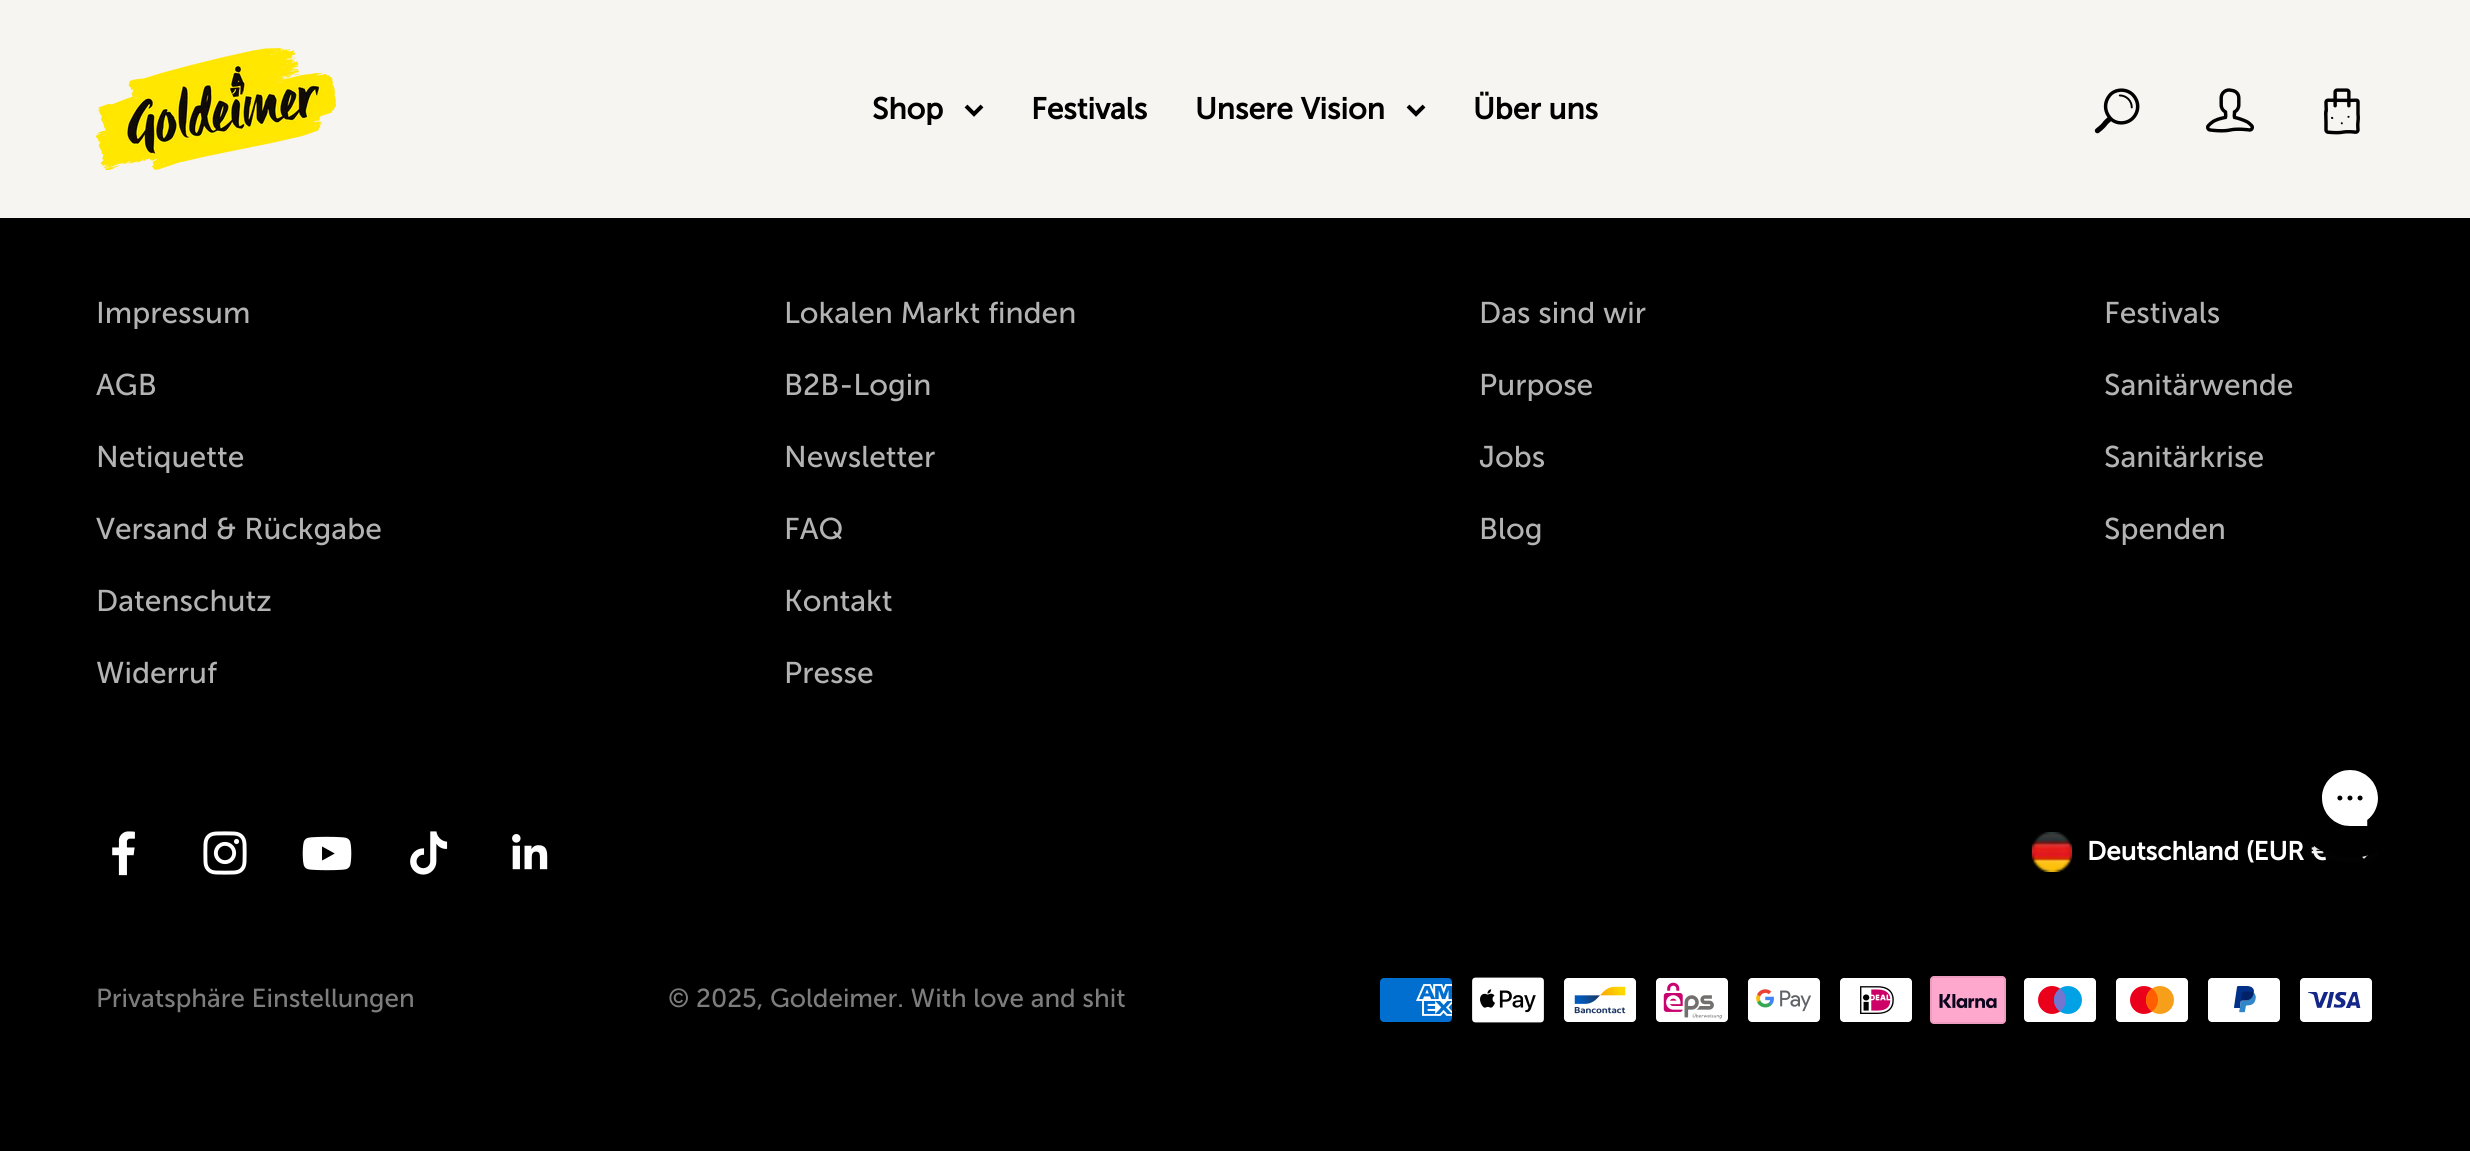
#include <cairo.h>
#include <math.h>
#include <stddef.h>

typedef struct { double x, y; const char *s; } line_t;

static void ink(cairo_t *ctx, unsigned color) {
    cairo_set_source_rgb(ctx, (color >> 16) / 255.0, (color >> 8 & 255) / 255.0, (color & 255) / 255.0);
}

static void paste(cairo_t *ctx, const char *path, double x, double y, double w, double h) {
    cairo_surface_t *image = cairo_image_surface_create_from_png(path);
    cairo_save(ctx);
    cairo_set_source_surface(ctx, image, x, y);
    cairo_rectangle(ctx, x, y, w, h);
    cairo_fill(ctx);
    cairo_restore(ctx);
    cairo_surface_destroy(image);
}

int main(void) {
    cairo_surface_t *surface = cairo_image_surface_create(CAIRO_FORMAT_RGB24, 2470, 1151);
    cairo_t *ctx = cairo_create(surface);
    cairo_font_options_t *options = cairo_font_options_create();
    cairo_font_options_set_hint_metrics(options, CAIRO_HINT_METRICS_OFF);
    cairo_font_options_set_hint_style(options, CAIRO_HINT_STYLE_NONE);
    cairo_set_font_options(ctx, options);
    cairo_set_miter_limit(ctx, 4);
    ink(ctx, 0x000000);
    cairo_paint(ctx);
    ink(ctx, 0xF7F5F1);
    cairo_rectangle(ctx, 0, 0, 2470, 218);
    cairo_fill(ctx);
    paste(ctx, "media/1.png", 96, 48, 240, 122);
    cairo_select_font_face(ctx, "Museo Sans", CAIRO_FONT_SLANT_NORMAL, CAIRO_FONT_WEIGHT_BOLD);
    cairo_set_font_size(ctx, 30);
    ink(ctx, 0x000000);
    cairo_move_to(ctx, 872, 119);
    cairo_show_text(ctx, "Shop");
    cairo_new_path(ctx);
    cairo_move_to(ctx, 966, 106);
    cairo_line_to(ctx, 974, 114);
    cairo_line_to(ctx, 982, 106);
    cairo_set_line_width(ctx, 4);
    cairo_stroke(ctx);
    cairo_move_to(ctx, 1031, 119);
    cairo_show_text(ctx, "Festivals");
    cairo_move_to(ctx, 1195, 119);
    cairo_show_text(ctx, "Unsere Vision");
    cairo_new_path(ctx);
    cairo_move_to(ctx, 1408, 106);
    cairo_line_to(ctx, 1416, 114);
    cairo_line_to(ctx, 1424, 106);
    cairo_stroke(ctx);
    cairo_move_to(ctx, 1473, 119);
    cairo_show_text(ctx, "Über uns");
    paste(ctx, "media/2.png", 2094, 88, 46, 46);
    paste(ctx, "media/3.png", 2206, 88, 48, 45);
    paste(ctx, "media/4.png", 2324, 88, 36, 47);
    cairo_select_font_face(ctx, "Museo Sans", CAIRO_FONT_SLANT_NORMAL, CAIRO_FONT_WEIGHT_NORMAL);
    ink(ctx, 0xB3B3B3);
    {
        static const line_t items[] = {
            {96, 323, "Impressum"},
            {96, 395, "AGB"},
            {96, 467, "Netiquette"},
            {96, 539, "Versand & Rückgabe"},
            {96, 611, "Datenschutz"},
            {96, 683, "Widerruf"},
            {784, 323, "Lokalen Markt finden"},
            {784, 395, "B2B-Login"},
            {784, 467, "Newsletter"},
            {784, 539, "FAQ"},
            {784, 611, "Kontakt"},
            {784, 683, "Presse"},
            {1479, 323, "Das sind wir"},
            {1479, 395, "Purpose"},
            {1479, 467, "Jobs"},
            {1479, 539, "Blog"},
            {2104, 323, "Festivals"},
            {2104, 395, "Sanitärwende"},
            {2104, 467, "Sanitärkrise"},
            {2104, 539, "Spenden"},
        };
        for (size_t i = 0; i < sizeof items / sizeof *items; i++) {
            cairo_move_to(ctx, items[i].x, items[i].y);
            cairo_show_text(ctx, items[i].s);
        }
    }
    paste(ctx, "media/5.png", 112, 831, 23, 45);
    paste(ctx, "media/6.png", 203, 831, 44, 44);
    paste(ctx, "media/7.png", 302, 836, 50, 35);
    paste(ctx, "media/8.png", 410, 831, 38, 44);
    paste(ctx, "media/9.png", 512, 834, 36, 36);
    paste(ctx, "media/10.png", 2032, 832, 40, 40);
    cairo_select_font_face(ctx, "Museo Sans", CAIRO_FONT_SLANT_NORMAL, CAIRO_FONT_WEIGHT_BOLD);
    cairo_set_font_size(ctx, 26);
    ink(ctx, 0xFFFFFF);
    cairo_move_to(ctx, 2087, 860);
    cairo_show_text(ctx, "Deutschland (EUR €");
    cairo_new_path(ctx);
    cairo_move_to(ctx, 2356, 848);
    cairo_line_to(ctx, 2364, 856);
    cairo_line_to(ctx, 2372, 848);
    cairo_stroke(ctx);
    cairo_select_font_face(ctx, "Museo Sans", CAIRO_FONT_SLANT_NORMAL, CAIRO_FONT_WEIGHT_NORMAL);
    ink(ctx, 0x7D7D7D);
    cairo_move_to(ctx, 96, 1007);
    cairo_show_text(ctx, "Privatsphäre Einstellungen");
    cairo_move_to(ctx, 668, 1007);
    cairo_show_text(ctx, "© 2025, Goldeimer. With love and shit");
    paste(ctx, "media/11.png", 1380, 978, 72, 44);
    paste(ctx, "media/12.png", 1472, 977, 72, 46);
    paste(ctx, "media/13.png", 1564, 978, 72, 44);
    paste(ctx, "media/14.png", 1656, 978, 72, 44);
    paste(ctx, "media/15.png", 1748, 978, 72, 44);
    paste(ctx, "media/16.png", 1840, 978, 72, 44);
    paste(ctx, "media/17.png", 1930, 976, 76, 48);
    paste(ctx, "media/18.png", 2024, 978, 72, 44);
    paste(ctx, "media/19.png", 2116, 978, 72, 44);
    paste(ctx, "media/20.png", 2208, 978, 72, 44);
    paste(ctx, "media/21.png", 2300, 978, 72, 44);
    paste(ctx, "media/22.png", 2300, 770, 78, 92);
    cairo_surface_write_to_png(surface, "image.png");
    cairo_font_options_destroy(options);
    cairo_destroy(ctx);
    cairo_surface_destroy(surface);
    return 0;
}
